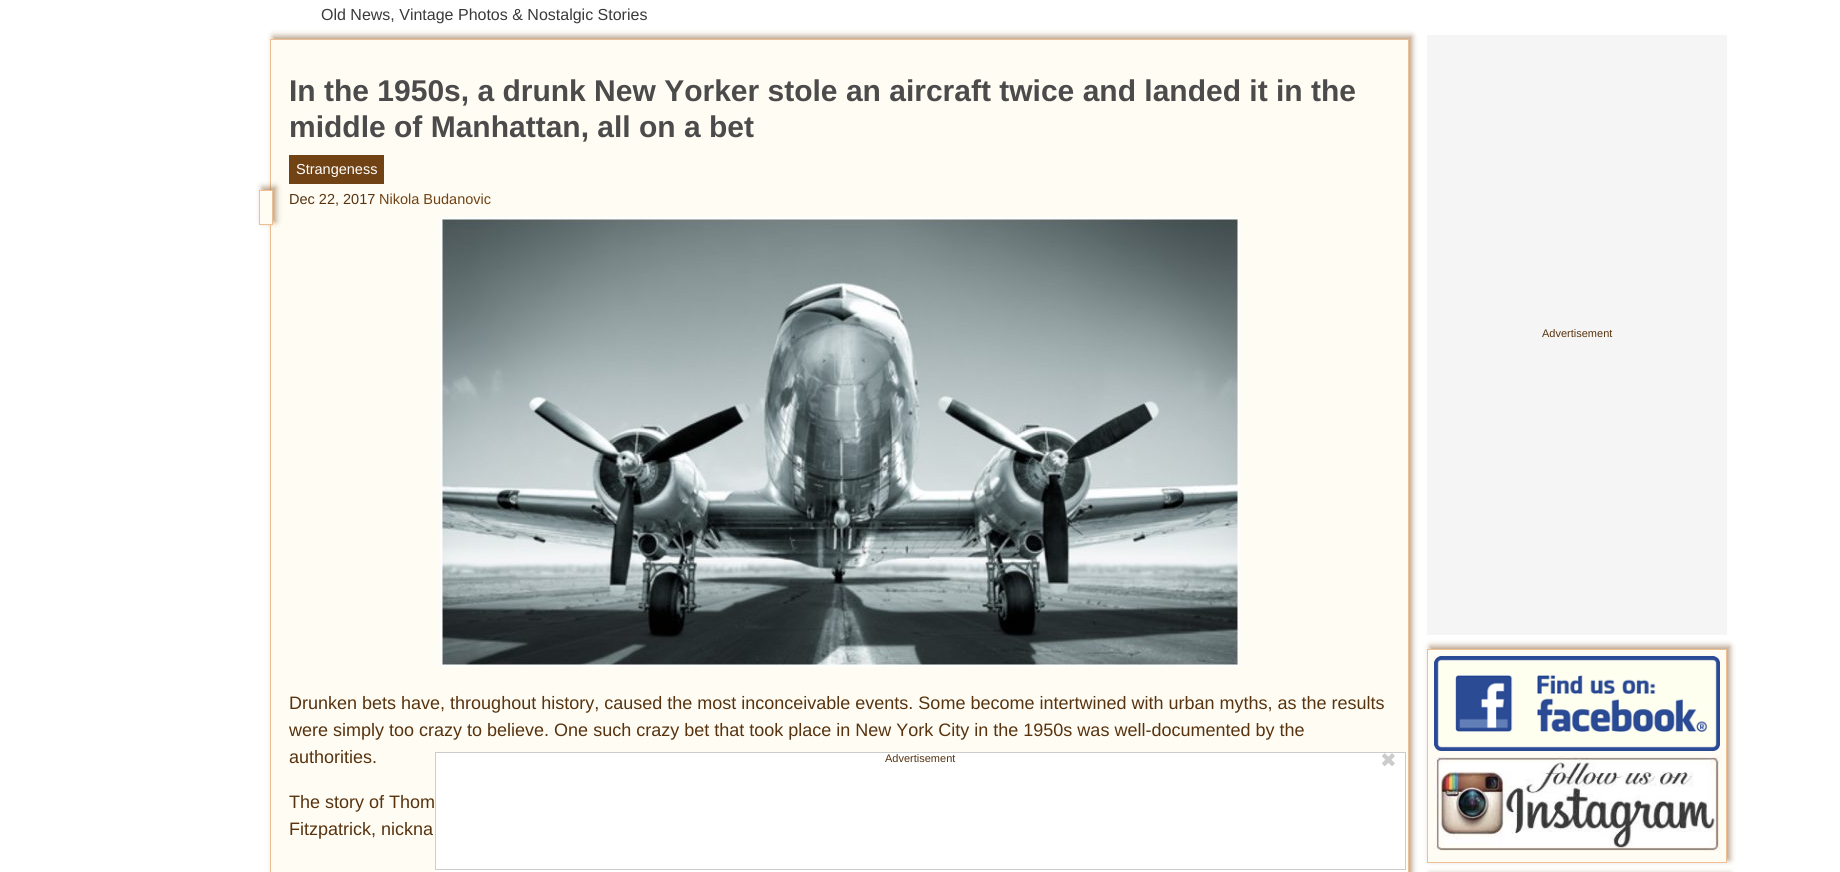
#include <cairo.h>
#include <math.h>
#include <stddef.h>

typedef struct { double x, y; const char *s; } line_t;

static void ink(cairo_t *ctx, unsigned color) {
    cairo_set_source_rgb(ctx, (color >> 16) / 255.0, (color >> 8 & 255) / 255.0, (color & 255) / 255.0);
}

static void round_path(cairo_t *ctx, double x, double y, double w, double h, double r) {
    cairo_new_sub_path(ctx);
    cairo_arc(ctx, x + w - r, y + h - r, r, 0, M_PI / 2);
    cairo_arc(ctx, x + r, y + h - r, r, M_PI / 2, M_PI);
    cairo_arc(ctx, x + r, y + r, r, M_PI, 1.5 * M_PI);
    cairo_arc(ctx, x + w - r, y + r, r, 1.5 * M_PI, 2 * M_PI);
    cairo_close_path(ctx);
}

static void blur_box(cairo_t *ctx, double x, double y, double w, double h, double r, double blur, double alpha) {
    cairo_push_group_with_content(ctx, CAIRO_CONTENT_ALPHA);
    cairo_set_operator(ctx, CAIRO_OPERATOR_SOURCE);
    for (int i = 15; i >= -15 && fmin(w, h) + blur * i / 3 > 0; i -= 2) {
        double e = blur * i / 6;
        cairo_set_source_rgba(ctx, 0, 0, 0, alpha * erfc((i - 1) / 8.5) / 2);
        round_path(ctx, x - e, y - e, w + 2 * e, h + 2 * e, fmax(0, fmin(r + e + blur * .6, fmin(w, h) / 2 + e)));
        cairo_fill(ctx);
    }
    cairo_pattern_t *soft = cairo_pop_group(ctx);
    cairo_mask(ctx, soft);
    cairo_pattern_destroy(soft);
}

static void paste(cairo_t *ctx, const char *path, double x, double y, double w, double h) {
    cairo_surface_t *image = cairo_image_surface_create_from_png(path);
    cairo_save(ctx);
    cairo_set_source_surface(ctx, image, x, y);
    cairo_rectangle(ctx, x, y, w, h);
    cairo_fill(ctx);
    cairo_restore(ctx);
    cairo_surface_destroy(image);
}

int main(void) {
    cairo_surface_t *surface = cairo_image_surface_create(CAIRO_FORMAT_RGB24, 1840, 872);
    cairo_t *ctx = cairo_create(surface);
    cairo_font_options_t *options = cairo_font_options_create();
    cairo_font_options_set_hint_metrics(options, CAIRO_HINT_METRICS_OFF);
    cairo_font_options_set_hint_style(options, CAIRO_HINT_STYLE_NONE);
    cairo_set_font_options(ctx, options);
    cairo_set_miter_limit(ctx, 4);
    ink(ctx, 0xFFFFFF);
    cairo_paint(ctx);
    cairo_select_font_face(ctx, "Liberation Sans", CAIRO_FONT_SLANT_NORMAL, CAIRO_FONT_WEIGHT_NORMAL);
    cairo_set_font_size(ctx, 16);
    ink(ctx, 0x3A3A3A);
    cairo_move_to(ctx, 321, 20);
    cairo_show_text(ctx, "Old News, Vintage Photos & Nostalgic Stories");
    ink(ctx, 0x704214);
    blur_box(ctx, 273, 36, 1139, 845, 0, 3, 0.5);
    ink(ctx, 0xFFFCF3);
    cairo_rectangle(ctx, 270.5, 39.5, 1138, 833);
    cairo_fill_preserve(ctx);
    ink(ctx, 0xEDBF92);
    cairo_set_line_width(ctx, 1);
    cairo_stroke(ctx);
    cairo_select_font_face(ctx, "Liberation Sans", CAIRO_FONT_SLANT_NORMAL, CAIRO_FONT_WEIGHT_BOLD);
    cairo_set_font_size(ctx, 30);
    ink(ctx, 0x4B4B4B);
    cairo_move_to(ctx, 289, 101);
    cairo_show_text(ctx, "In the 1950s, a drunk New Yorker stole an aircraft twice and landed it in the");
    cairo_move_to(ctx, 289, 137);
    cairo_show_text(ctx, "middle of Manhattan, all on a bet");
    ink(ctx, 0x704214);
    blur_box(ctx, 262, 187, 14, 35, 0, 3, 0.5);
    ink(ctx, 0xFFFCF3);
    cairo_rectangle(ctx, 259.5, 190.5, 13, 34);
    cairo_fill_preserve(ctx);
    ink(ctx, 0xEDBF92);
    cairo_stroke(ctx);
    ink(ctx, 0x704214);
    cairo_rectangle(ctx, 289, 155, 95, 29);
    cairo_fill(ctx);
    cairo_select_font_face(ctx, "Liberation Sans", CAIRO_FONT_SLANT_NORMAL, CAIRO_FONT_WEIGHT_NORMAL);
    cairo_set_font_size(ctx, 14.5);
    ink(ctx, 0xFFFFFF);
    cairo_move_to(ctx, 296, 174);
    cairo_show_text(ctx, "Strangeness");
    ink(ctx, 0x57330F);
    cairo_move_to(ctx, 289, 204);
    cairo_show_text(ctx, "Dec 22, 2017");
    ink(ctx, 0x704214);
    cairo_move_to(ctx, 379, 204);
    cairo_show_text(ctx, "Nikola Budanovic");
    paste(ctx, "media/1.png", 440, 217, 800, 450);
    cairo_set_font_size(ctx, 18);
    ink(ctx, 0x57330F);
    {
        static const line_t items[] = {
            {289, 709, "Drunken bets have, throughout history, caused the most inconceivable events. Some become intertwined with urban myths, as the results"},
            {289, 736, "were simply too crazy to believe. One such crazy bet that took place in New York City in the 1950s was well-documented by the"},
            {289, 763, "authorities."},
            {289, 808, "The story of Thom"},
            {289, 835, "Fitzpatrick, nickna"},
        };
        for (size_t i = 0; i < sizeof items / sizeof *items; i++) {
            cairo_move_to(ctx, items[i].x, items[i].y);
            cairo_show_text(ctx, items[i].s);
        }
    }
    ink(ctx, 0xF5F5F5);
    cairo_rectangle(ctx, 1427, 35, 300, 600);
    cairo_fill(ctx);
    cairo_set_font_size(ctx, 11);
    ink(ctx, 0x57330F);
    cairo_move_to(ctx, 1542, 337);
    cairo_show_text(ctx, "Advertisement");
    ink(ctx, 0x704214);
    blur_box(ctx, 1430, 646, 300, 214, 0, 3, 0.5);
    ink(ctx, 0xFFFCF3);
    cairo_rectangle(ctx, 1427.5, 649.5, 299, 213);
    cairo_fill_preserve(ctx);
    ink(ctx, 0xEDBF92);
    cairo_stroke(ctx);
    paste(ctx, "media/2.png", 1434, 656, 286, 95);
    paste(ctx, "media/3.png", 1434, 756, 286, 95);
    ink(ctx, 0x704214);
    blur_box(ctx, 1430, 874, 300, 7, 0, 3, 0.5);
    ink(ctx, 0xFFFFFF);
    cairo_rectangle(ctx, 435, 753, 971, 119);
    cairo_fill(ctx);
    cairo_rectangle(ctx, 435.5, 752.5, 970, 117);
    ink(ctx, 0xCCCCCC);
    cairo_stroke(ctx);
    ink(ctx, 0x57330F);
    cairo_move_to(ctx, 885, 762);
    cairo_show_text(ctx, "Advertisement");
    cairo_select_font_face(ctx, "DejaVu Sans", CAIRO_FONT_SLANT_NORMAL, CAIRO_FONT_WEIGHT_NORMAL);
    cairo_set_font_size(ctx, 20);
    ink(ctx, 0xCCCCCC);
    cairo_move_to(ctx, 1380, 767);
    cairo_show_text(ctx, "✖");
    cairo_surface_write_to_png(surface, "image.png");
    cairo_font_options_destroy(options);
    cairo_destroy(ctx);
    cairo_surface_destroy(surface);
    return 0;
}
